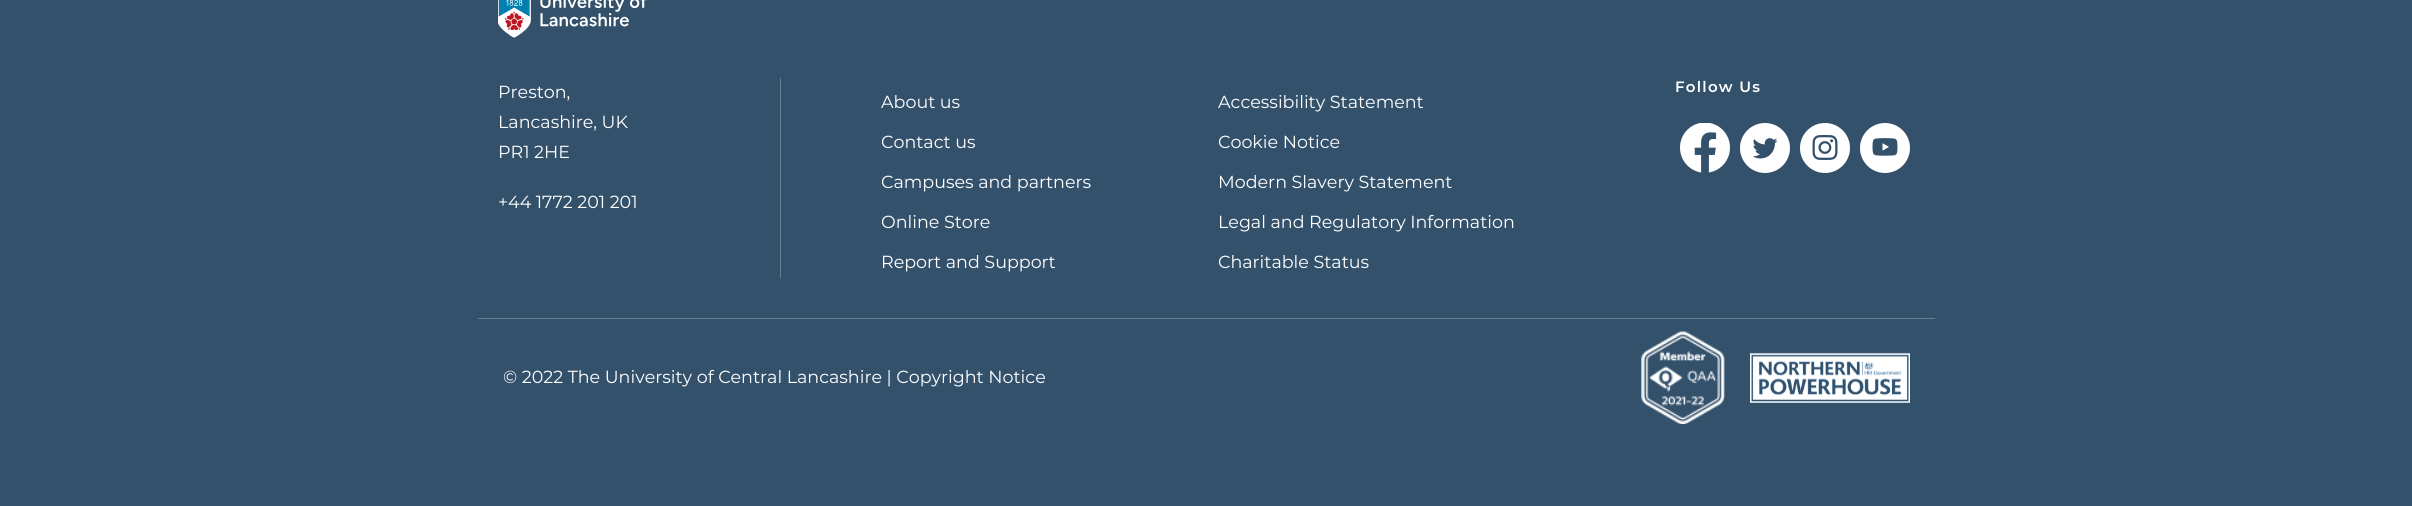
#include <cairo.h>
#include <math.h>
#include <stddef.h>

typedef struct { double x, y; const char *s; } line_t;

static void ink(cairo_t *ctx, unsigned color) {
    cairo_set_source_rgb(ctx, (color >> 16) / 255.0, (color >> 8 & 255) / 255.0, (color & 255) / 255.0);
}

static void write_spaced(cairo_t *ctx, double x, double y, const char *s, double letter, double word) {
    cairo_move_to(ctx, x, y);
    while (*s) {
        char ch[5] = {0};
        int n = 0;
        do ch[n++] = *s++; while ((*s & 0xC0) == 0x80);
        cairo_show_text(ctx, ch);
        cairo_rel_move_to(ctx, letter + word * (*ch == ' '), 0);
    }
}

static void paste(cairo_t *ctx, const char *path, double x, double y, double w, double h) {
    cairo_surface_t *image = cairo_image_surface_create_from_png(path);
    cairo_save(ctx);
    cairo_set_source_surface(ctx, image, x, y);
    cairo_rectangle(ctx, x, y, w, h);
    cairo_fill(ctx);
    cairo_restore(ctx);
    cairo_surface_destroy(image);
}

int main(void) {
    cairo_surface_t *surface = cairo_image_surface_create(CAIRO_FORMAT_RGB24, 2412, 506);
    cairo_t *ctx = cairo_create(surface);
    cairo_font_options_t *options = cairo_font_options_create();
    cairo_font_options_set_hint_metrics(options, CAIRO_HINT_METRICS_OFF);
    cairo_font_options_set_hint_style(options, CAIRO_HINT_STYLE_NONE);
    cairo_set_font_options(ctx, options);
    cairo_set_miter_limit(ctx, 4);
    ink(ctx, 0x34516C);
    cairo_paint(ctx);
    paste(ctx, "media/1.png", 498, 0, 149, 38);
    ink(ctx, 0x677D91);
    cairo_rectangle(ctx, 478, 318, 1457, 1);
    cairo_fill(ctx);
    cairo_rectangle(ctx, 780, 78, 1, 200);
    cairo_fill(ctx);
    cairo_select_font_face(ctx, "Montserrat", CAIRO_FONT_SLANT_NORMAL, CAIRO_FONT_WEIGHT_NORMAL);
    cairo_set_font_size(ctx, 17.5);
    ink(ctx, 0xFFFFFF);
    {
        static const line_t items[] = {
            {498, 98, "Preston,"},
            {498, 128, "Lancashire, UK"},
            {498, 158, "PR1 2HE"},
            {498, 208, "+44 1772 201 201"},
            {881, 108, "About us"},
            {1218, 108, "Accessibility Statement"},
            {881, 148, "Contact us"},
            {1218, 148, "Cookie Notice"},
            {881, 188, "Campuses and partners"},
            {1218, 188, "Modern Slavery Statement"},
            {881, 228, "Online Store"},
            {1218, 228, "Legal and Regulatory Information"},
            {881, 268, "Report and Support"},
            {1218, 268, "Charitable Status"},
        };
        for (size_t i = 0; i < sizeof items / sizeof *items; i++) {
            cairo_move_to(ctx, items[i].x, items[i].y);
            cairo_show_text(ctx, items[i].s);
        }
    }
    cairo_select_font_face(ctx, "Montserrat SemiBold", CAIRO_FONT_SLANT_NORMAL, CAIRO_FONT_WEIGHT_NORMAL);
    cairo_set_font_size(ctx, 15);
    write_spaced(ctx, 1675, 92, "Follow Us", 1.25, 0);
    paste(ctx, "media/2.png", 1680, 123, 50, 50);
    cairo_arc(ctx, 1765, 148, 25, 0, 2 * M_PI);
    cairo_fill(ctx);
    paste(ctx, "media/3.png", 1752, 138, 26, 21);
    cairo_arc(ctx, 1825, 148, 25, 0, 2 * M_PI);
    cairo_fill(ctx);
    paste(ctx, "media/4.png", 1812, 135, 26, 25);
    cairo_arc(ctx, 1885, 148, 25, 0, 2 * M_PI);
    cairo_fill(ctx);
    paste(ctx, "media/5.png", 1872, 138, 26, 18);
    cairo_select_font_face(ctx, "Montserrat", CAIRO_FONT_SLANT_NORMAL, CAIRO_FONT_WEIGHT_NORMAL);
    cairo_set_font_size(ctx, 17.5);
    cairo_move_to(ctx, 503, 383);
    cairo_show_text(ctx, "© 2022 The University of Central Lancashire | Copyright Notice");
    paste(ctx, "media/6.png", 1641, 331, 84, 93);
    paste(ctx, "media/7.png", 1750, 352, 160, 51);
    cairo_surface_write_to_png(surface, "image.png");
    cairo_font_options_destroy(options);
    cairo_destroy(ctx);
    cairo_surface_destroy(surface);
    return 0;
}
